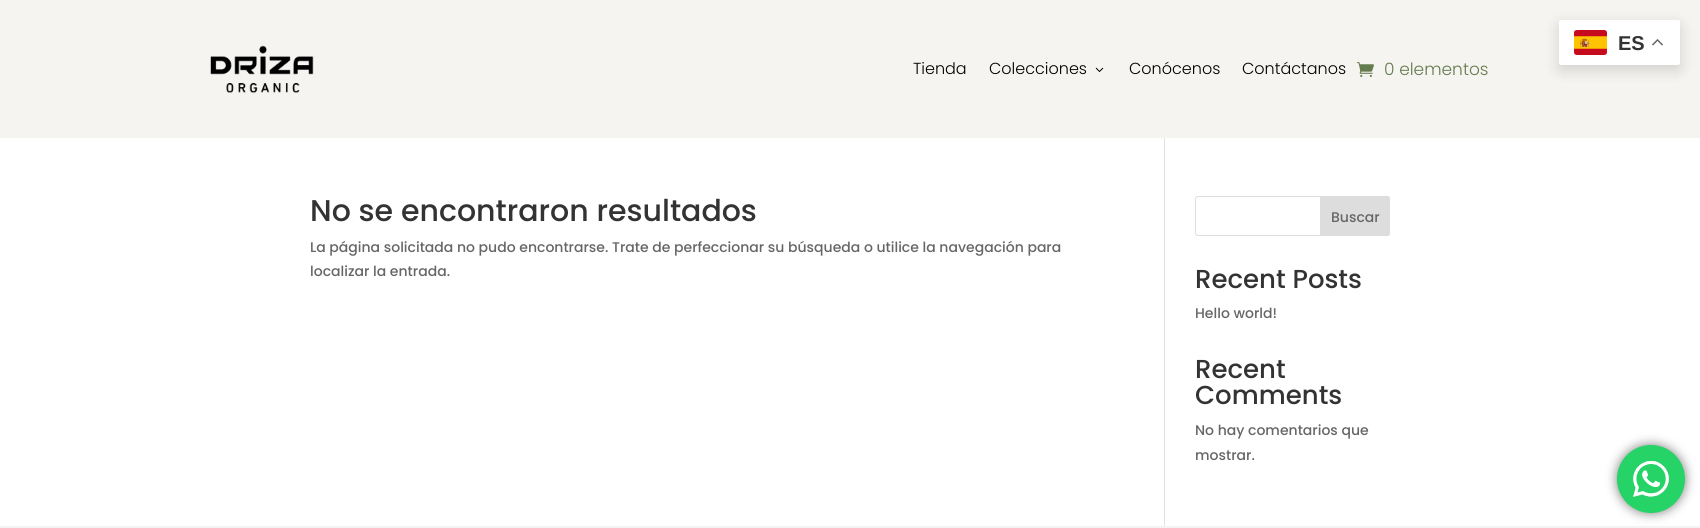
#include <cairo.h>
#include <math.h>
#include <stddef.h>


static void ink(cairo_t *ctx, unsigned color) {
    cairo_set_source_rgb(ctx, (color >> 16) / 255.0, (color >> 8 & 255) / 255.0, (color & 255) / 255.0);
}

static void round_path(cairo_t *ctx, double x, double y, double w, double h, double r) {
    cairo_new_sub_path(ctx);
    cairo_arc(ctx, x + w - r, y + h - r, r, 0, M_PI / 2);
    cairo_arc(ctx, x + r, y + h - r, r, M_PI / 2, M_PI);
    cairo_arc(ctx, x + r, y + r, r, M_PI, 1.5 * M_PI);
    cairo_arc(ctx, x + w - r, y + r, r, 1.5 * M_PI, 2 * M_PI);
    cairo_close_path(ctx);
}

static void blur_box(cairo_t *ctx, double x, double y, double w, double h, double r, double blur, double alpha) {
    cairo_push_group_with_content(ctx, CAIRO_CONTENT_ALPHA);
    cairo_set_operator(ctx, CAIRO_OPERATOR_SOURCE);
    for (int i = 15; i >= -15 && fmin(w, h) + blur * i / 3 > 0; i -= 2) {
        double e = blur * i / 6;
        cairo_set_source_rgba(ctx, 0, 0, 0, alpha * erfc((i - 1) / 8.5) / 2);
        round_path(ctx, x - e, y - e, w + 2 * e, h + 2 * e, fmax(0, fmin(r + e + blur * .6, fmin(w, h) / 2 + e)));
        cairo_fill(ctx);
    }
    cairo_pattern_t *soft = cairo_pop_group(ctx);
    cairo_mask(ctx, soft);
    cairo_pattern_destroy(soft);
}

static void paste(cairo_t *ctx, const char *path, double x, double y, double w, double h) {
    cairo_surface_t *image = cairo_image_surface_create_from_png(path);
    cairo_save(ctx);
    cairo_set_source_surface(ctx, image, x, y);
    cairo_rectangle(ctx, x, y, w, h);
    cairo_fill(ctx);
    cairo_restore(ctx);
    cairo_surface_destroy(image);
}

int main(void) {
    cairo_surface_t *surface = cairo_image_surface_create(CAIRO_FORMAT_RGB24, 1700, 528);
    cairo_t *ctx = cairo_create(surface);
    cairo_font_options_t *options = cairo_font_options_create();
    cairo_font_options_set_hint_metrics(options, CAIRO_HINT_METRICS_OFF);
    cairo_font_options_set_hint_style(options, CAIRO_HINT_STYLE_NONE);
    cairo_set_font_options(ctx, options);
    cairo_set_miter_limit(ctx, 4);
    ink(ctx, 0xFFFFFF);
    cairo_paint(ctx);
    ink(ctx, 0xF5F4F1);
    cairo_rectangle(ctx, 0, 0, 1700, 138);
    cairo_fill(ctx);
    ink(ctx, 0x000000);
    blur_box(ctx, 1559, 25, 121, 45, 2, 7.5, 0.15);
    ink(ctx, 0xFFFFFF);
    round_path(ctx, 1559, 20, 121, 45, 2);
    cairo_fill(ctx);
    paste(ctx, "media/1.png", 1574, 30, 33, 25);
    cairo_select_font_face(ctx, "Liberation Sans", CAIRO_FONT_SLANT_NORMAL, CAIRO_FONT_WEIGHT_BOLD);
    cairo_set_font_size(ctx, 20);
    ink(ctx, 0x333333);
    cairo_move_to(ctx, 1618, 50);
    cairo_show_text(ctx, "ES");
    paste(ctx, "media/2.png", 1652, 39, 11, 7);
    paste(ctx, "media/3.png", 210, 45, 104, 48);
    cairo_select_font_face(ctx, "Poppins Light", CAIRO_FONT_SLANT_NORMAL, CAIRO_FONT_WEIGHT_NORMAL);
    cairo_set_font_size(ctx, 16);
    ink(ctx, 0x000000);
    cairo_move_to(ctx, 913, 74);
    cairo_show_text(ctx, "Tienda");
    cairo_move_to(ctx, 989, 74);
    cairo_show_text(ctx, "Colecciones");
    paste(ctx, "media/4.png", 1095, 67, 9, 5);
    cairo_move_to(ctx, 1129, 74);
    cairo_show_text(ctx, "Conócenos");
    cairo_move_to(ctx, 1242, 74);
    cairo_show_text(ctx, "Contáctanos");
    paste(ctx, "media/5.png", 1357, 62, 17, 15);
    cairo_set_font_size(ctx, 17);
    ink(ctx, 0x647B4D);
    cairo_move_to(ctx, 1384, 75);
    cairo_show_text(ctx, "0 elementos");
    ink(ctx, 0xE2E2E2);
    cairo_rectangle(ctx, 1164, 138, 1, 388);
    cairo_fill(ctx);
    cairo_select_font_face(ctx, "Poppins Medium", CAIRO_FONT_SLANT_NORMAL, CAIRO_FONT_WEIGHT_NORMAL);
    cairo_set_font_size(ctx, 30);
    ink(ctx, 0x333333);
    cairo_move_to(ctx, 310, 221);
    cairo_show_text(ctx, "No se encontraron resultados");
    cairo_set_font_size(ctx, 14);
    ink(ctx, 0x666666);
    cairo_move_to(ctx, 310, 252);
    cairo_show_text(ctx, "La página solicitada no pudo encontrarse. Trate de perfeccionar su búsqueda o utilice la navegación para");
    cairo_move_to(ctx, 310, 276);
    cairo_show_text(ctx, "localizar la entrada.");
    round_path(ctx, 1195.5, 196.5, 194, 39, 2.5);
    ink(ctx, 0xDDDDDD);
    cairo_set_line_width(ctx, 1);
    cairo_stroke(ctx);
    cairo_new_path(ctx);
    cairo_move_to(ctx, 1320.5, 196.5);
    cairo_line_to(ctx, 1387, 196.5);
    cairo_curve_to(ctx, 1388.5, 196.5, 1389.5, 197.5, 1389.5, 199);
    cairo_line_to(ctx, 1389.5, 233);
    cairo_curve_to(ctx, 1389.5, 234.5, 1388.5, 235.5, 1387, 235.5);
    cairo_line_to(ctx, 1320.5, 235.5);
    cairo_close_path(ctx);
    cairo_fill_preserve(ctx);
    cairo_stroke(ctx);
    ink(ctx, 0x666666);
    cairo_move_to(ctx, 1331, 222);
    cairo_show_text(ctx, "Buscar");
    cairo_set_font_size(ctx, 26);
    ink(ctx, 0x333333);
    cairo_move_to(ctx, 1195, 288);
    cairo_show_text(ctx, "Recent Posts");
    cairo_set_font_size(ctx, 14);
    ink(ctx, 0x666666);
    cairo_move_to(ctx, 1195, 318);
    cairo_show_text(ctx, "Hello world!");
    cairo_set_font_size(ctx, 26);
    ink(ctx, 0x333333);
    cairo_move_to(ctx, 1195, 378);
    cairo_show_text(ctx, "Recent");
    cairo_move_to(ctx, 1195, 404);
    cairo_show_text(ctx, "Comments");
    cairo_set_font_size(ctx, 14);
    ink(ctx, 0x666666);
    cairo_move_to(ctx, 1195, 435);
    cairo_show_text(ctx, "No hay comentarios que");
    cairo_move_to(ctx, 1195, 460);
    cairo_show_text(ctx, "mostrar.");
    ink(ctx, 0xF4F3F1);
    cairo_rectangle(ctx, 0, 526, 1700, 2);
    cairo_fill(ctx);
    ink(ctx, 0x000000);
    blur_box(ctx, 1617, 445, 68, 68, 34, 5.5, 0.5);
    ink(ctx, 0x25D366);
    cairo_arc(ctx, 1651, 479, 34, 0, 2 * M_PI);
    cairo_fill(ctx);
    paste(ctx, "media/6.png", 1633, 461, 36, 36);
    cairo_surface_write_to_png(surface, "image.png");
    cairo_font_options_destroy(options);
    cairo_destroy(ctx);
    cairo_surface_destroy(surface);
    return 0;
}
